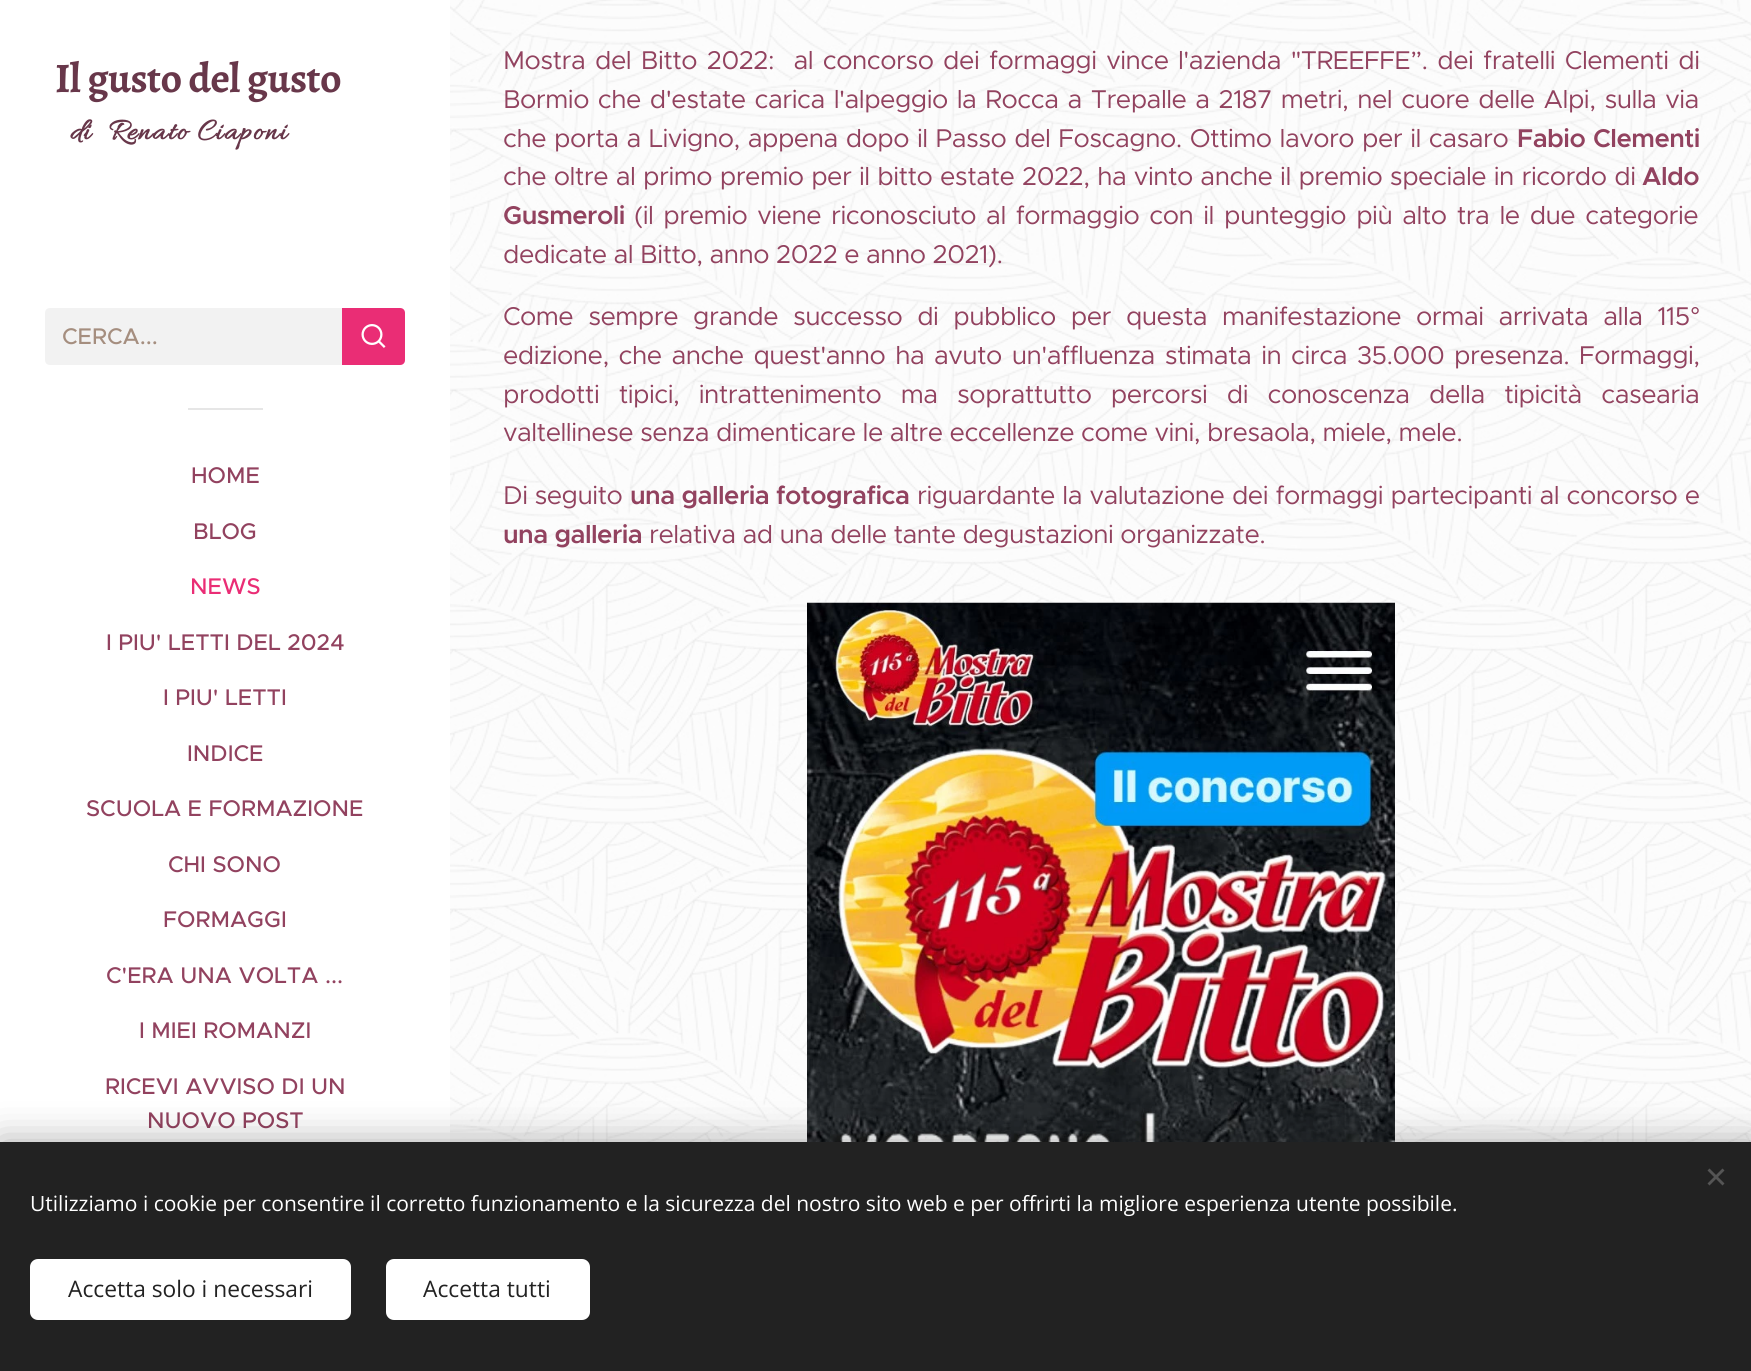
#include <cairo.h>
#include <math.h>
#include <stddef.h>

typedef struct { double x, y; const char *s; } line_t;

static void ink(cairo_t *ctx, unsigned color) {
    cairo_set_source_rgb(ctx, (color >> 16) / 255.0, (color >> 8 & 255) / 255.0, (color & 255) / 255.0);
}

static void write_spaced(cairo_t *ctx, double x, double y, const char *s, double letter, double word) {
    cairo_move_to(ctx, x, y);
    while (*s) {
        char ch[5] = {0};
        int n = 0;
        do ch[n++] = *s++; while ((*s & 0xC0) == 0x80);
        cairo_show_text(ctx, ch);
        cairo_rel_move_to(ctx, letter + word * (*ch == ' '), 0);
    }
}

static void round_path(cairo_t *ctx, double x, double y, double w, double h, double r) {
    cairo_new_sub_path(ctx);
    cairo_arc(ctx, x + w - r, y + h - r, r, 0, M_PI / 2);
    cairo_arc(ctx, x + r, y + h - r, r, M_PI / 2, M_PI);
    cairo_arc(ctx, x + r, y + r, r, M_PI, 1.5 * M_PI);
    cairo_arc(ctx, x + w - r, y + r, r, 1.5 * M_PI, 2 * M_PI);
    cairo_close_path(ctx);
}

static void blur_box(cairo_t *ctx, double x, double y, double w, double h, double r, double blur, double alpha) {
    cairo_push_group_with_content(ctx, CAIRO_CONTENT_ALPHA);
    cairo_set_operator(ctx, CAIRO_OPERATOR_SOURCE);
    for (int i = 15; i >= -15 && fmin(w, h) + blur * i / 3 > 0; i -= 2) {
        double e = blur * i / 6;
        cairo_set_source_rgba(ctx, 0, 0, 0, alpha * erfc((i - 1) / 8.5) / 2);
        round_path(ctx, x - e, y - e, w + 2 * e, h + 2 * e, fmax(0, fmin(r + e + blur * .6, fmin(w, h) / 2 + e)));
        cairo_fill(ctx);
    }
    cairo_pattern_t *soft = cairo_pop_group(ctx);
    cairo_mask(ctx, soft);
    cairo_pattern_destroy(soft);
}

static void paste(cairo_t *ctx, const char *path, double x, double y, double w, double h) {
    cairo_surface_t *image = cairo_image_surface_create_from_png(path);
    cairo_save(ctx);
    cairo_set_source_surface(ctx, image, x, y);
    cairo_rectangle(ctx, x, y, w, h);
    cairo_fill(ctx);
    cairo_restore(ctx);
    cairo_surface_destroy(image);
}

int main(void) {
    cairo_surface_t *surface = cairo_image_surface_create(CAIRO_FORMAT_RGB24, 1751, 1371);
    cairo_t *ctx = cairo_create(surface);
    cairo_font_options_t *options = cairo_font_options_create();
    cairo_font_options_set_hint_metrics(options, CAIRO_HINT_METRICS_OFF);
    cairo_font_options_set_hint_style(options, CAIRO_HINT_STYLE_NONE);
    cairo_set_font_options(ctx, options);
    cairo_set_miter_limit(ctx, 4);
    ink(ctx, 0xFFFFFF);
    cairo_paint(ctx);
    cairo_select_font_face(ctx, "Alegreya", CAIRO_FONT_SLANT_NORMAL, CAIRO_FONT_WEIGHT_BOLD);
    cairo_set_font_size(ctx, 42);
    ink(ctx, 0x68374A);
    write_spaced(ctx, 55, 92, "Il gusto del gusto", -0.52, 0);
    cairo_select_font_face(ctx, "Allura", CAIRO_FONT_SLANT_NORMAL, CAIRO_FONT_WEIGHT_BOLD);
    cairo_set_font_size(ctx, 31.25);
    write_spaced(ctx, 70, 139, "di  Renato Ciaponi", 1.5, 0);
    ink(ctx, 0xF2F2F2);
    cairo_new_path(ctx);
    cairo_move_to(ctx, 50, 308);
    cairo_line_to(ctx, 342, 308);
    cairo_line_to(ctx, 342, 365);
    cairo_line_to(ctx, 50, 365);
    cairo_curve_to(ctx, 47, 365, 45, 363, 45, 360);
    cairo_line_to(ctx, 45, 313);
    cairo_curve_to(ctx, 45, 310, 47, 308, 50, 308);
    cairo_close_path(ctx);
    cairo_fill(ctx);
    cairo_select_font_face(ctx, "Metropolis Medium", CAIRO_FONT_SLANT_NORMAL, CAIRO_FONT_WEIGHT_NORMAL);
    cairo_set_font_size(ctx, 22.75);
    ink(ctx, 0xA58E7F);
    cairo_move_to(ctx, 62, 344);
    cairo_show_text(ctx, "CERCA...");
    ink(ctx, 0xEA2D75);
    cairo_new_path(ctx);
    cairo_move_to(ctx, 342, 308);
    cairo_line_to(ctx, 400, 308);
    cairo_curve_to(ctx, 403, 308, 405, 310, 405, 313);
    cairo_line_to(ctx, 405, 360);
    cairo_curve_to(ctx, 405, 363, 403, 365, 400, 365);
    cairo_line_to(ctx, 342, 365);
    cairo_close_path(ctx);
    cairo_fill(ctx);
    paste(ctx, "media/1.png", 361, 324, 25, 24);
    ink(ctx, 0xE6E6E6);
    cairo_rectangle(ctx, 188, 408, 75, 2);
    cairo_fill(ctx);
    ink(ctx, 0x92425F);
    cairo_move_to(ctx, 191, 483);
    cairo_show_text(ctx, "HOME");
    cairo_move_to(ctx, 193, 539);
    cairo_show_text(ctx, "BLOG");
    ink(ctx, 0xEA2D75);
    cairo_move_to(ctx, 190, 594);
    cairo_show_text(ctx, "NEWS");
    ink(ctx, 0x92425F);
    {
        static const line_t items[] = {
            {106, 650, "I PIU' LETTI DEL 2024"},
            {163, 705, "I PIU' LETTI"},
            {187, 761, "INDICE"},
            {86, 816, "SCUOLA E FORMAZIONE"},
            {168, 872, "CHI SONO"},
            {163, 927, "FORMAGGI"},
            {106, 983, "C'ERA UNA VOLTA ..."},
            {139, 1038, "I MIEI ROMANZI"},
            {105, 1094, "RICEVI AVVISO DI UN"},
            {147, 1128, "NUOVO POST"},
        };
        for (size_t i = 0; i < sizeof items / sizeof *items; i++) {
            cairo_move_to(ctx, items[i].x, items[i].y);
            cairo_show_text(ctx, items[i].s);
        }
    }
    paste(ctx, "media/2.png", 450, 0, 1301, 1142);
    cairo_select_font_face(ctx, "Metropolis", CAIRO_FONT_SLANT_NORMAL, CAIRO_FONT_WEIGHT_NORMAL);
    cairo_set_font_size(ctx, 25.8);
    write_spaced(ctx, 503, 69, "Mostra del Bitto 2022:  al concorso dei formaggi vince", -0.52, 2.75);
    write_spaced(ctx, 1178, 69, "l'azienda \"TREEFFE”. dei fratelli Clementi di", -0.52, 2.75);
    write_spaced(ctx, 503, 108, "Bormio che d'estate carica l'alpeggio la Rocca a Trepalle a 2187 metri, nel cuore delle Alpi, sulla via", -0.52, 2);
    write_spaced(ctx, 503, 147, "che porta a Livigno, appena dopo il Passo del Foscagno. Ottimo lavoro per il casaro", -0.52, 1);
    cairo_select_font_face(ctx, "Metropolis SemiBold", CAIRO_FONT_SLANT_NORMAL, CAIRO_FONT_WEIGHT_NORMAL);
    write_spaced(ctx, 1517, 147, "Fabio Clementi", -0.52, 1);
    cairo_select_font_face(ctx, "Metropolis", CAIRO_FONT_SLANT_NORMAL, CAIRO_FONT_WEIGHT_NORMAL);
    write_spaced(ctx, 503, 185, "che oltre al primo premio per il bitto estate 2022, ha vinto anche il premio speciale in ricordo di", -0.52, 0.7);
    cairo_select_font_face(ctx, "Metropolis SemiBold", CAIRO_FONT_SLANT_NORMAL, CAIRO_FONT_WEIGHT_NORMAL);
    write_spaced(ctx, 1642, 185, "Aldo", -0.52, 0);
    write_spaced(ctx, 503, 224, "Gusmeroli", -0.52, 0);
    cairo_select_font_face(ctx, "Metropolis", CAIRO_FONT_SLANT_NORMAL, CAIRO_FONT_WEIGHT_NORMAL);
    write_spaced(ctx, 634, 224, "(il premio viene riconosciuto al formaggio con il punteggio più alto tra le due categorie", -0.52, 3.1);
    write_spaced(ctx, 503, 263, "dedicate al Bitto, anno 2022 e anno 2021).", -0.52, 0);
    write_spaced(ctx, 503, 325, "Come sempre grande successo di pubblico per questa manifestazione ormai arrivata alla 115", -0.52, 8);
    cairo_select_font_face(ctx, "Liberation Sans", CAIRO_FONT_SLANT_NORMAL, CAIRO_FONT_WEIGHT_NORMAL);
    write_spaced(ctx, 1690, 325, "°", -0.52, 0);
    cairo_select_font_face(ctx, "Metropolis", CAIRO_FONT_SLANT_NORMAL, CAIRO_FONT_WEIGHT_NORMAL);
    write_spaced(ctx, 503, 364, "edizione, che anche quest'anno ha avuto un'affluenza stimata in circa 35.000 presenza. Formaggi,", -0.52, 2.9);
    write_spaced(ctx, 503, 403, "prodotti tipici, intrattenimento ma soprattutto percorsi di conoscenza della tipicità casearia", -0.52, 12.5);
    write_spaced(ctx, 503, 441, "valtellinese senza dimenticare le altre eccellenze come vini, bresaola, miele, mele.", -0.52, 0);
    write_spaced(ctx, 503, 504, "Di seguito", -0.52, 0);
    cairo_select_font_face(ctx, "Metropolis SemiBold", CAIRO_FONT_SLANT_NORMAL, CAIRO_FONT_WEIGHT_NORMAL);
    write_spaced(ctx, 630, 504, "una galleria fotografica", -0.52, 0);
    cairo_select_font_face(ctx, "Metropolis", CAIRO_FONT_SLANT_NORMAL, CAIRO_FONT_WEIGHT_NORMAL);
    write_spaced(ctx, 917, 504, "riguardante la valutazione dei formaggi partecipanti al concorso e", -0.52, 0.5);
    cairo_select_font_face(ctx, "Metropolis SemiBold", CAIRO_FONT_SLANT_NORMAL, CAIRO_FONT_WEIGHT_NORMAL);
    write_spaced(ctx, 503, 543, "una galleria", -0.52, 0);
    cairo_select_font_face(ctx, "Metropolis", CAIRO_FONT_SLANT_NORMAL, CAIRO_FONT_WEIGHT_NORMAL);
    write_spaced(ctx, 649, 543, "relativa ad una delle tante degustazioni organizzate.", -0.52, 0);
    paste(ctx, "media/3.png", 807, 602, 588, 540);
    ink(ctx, 0x000000);
    blur_box(ctx, 0, 1142, 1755, 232, 0, 19, 0.33);
    ink(ctx, 0x222222);
    cairo_rectangle(ctx, 0, 1142, 1751, 229);
    cairo_fill(ctx);
    ink(ctx, 0x555555);
    cairo_new_path(ctx);
    cairo_move_to(ctx, 1707.5, 1183.5);
    cairo_line_to(ctx, 1722.5, 1168.5);
    cairo_line_to(ctx, 1724.5, 1170.5);
    cairo_line_to(ctx, 1709.5, 1185.5);
    cairo_close_path(ctx);
    cairo_fill(ctx);
    cairo_new_path(ctx);
    cairo_move_to(ctx, 1709.5, 1168.5);
    cairo_line_to(ctx, 1724.5, 1183.5);
    cairo_line_to(ctx, 1722.5, 1185.5);
    cairo_line_to(ctx, 1707.5, 1170.5);
    cairo_close_path(ctx);
    cairo_fill(ctx);
    cairo_select_font_face(ctx, "Open Sans", CAIRO_FONT_SLANT_NORMAL, CAIRO_FONT_WEIGHT_NORMAL);
    cairo_set_font_size(ctx, 21);
    ink(ctx, 0xFFFFFF);
    cairo_move_to(ctx, 30, 1211);
    cairo_show_text(ctx, "Utilizziamo i cookie per consentire il corretto funzionamento e la sicurezza del nostro sito web e per offrirti la migliore esperienza utente possibile.");
    round_path(ctx, 30, 1259, 321, 61, 8);
    cairo_fill(ctx);
    cairo_set_font_size(ctx, 22.75);
    ink(ctx, 0x222222);
    cairo_move_to(ctx, 68, 1297);
    cairo_show_text(ctx, "Accetta solo i necessari");
    ink(ctx, 0xFFFFFF);
    round_path(ctx, 386, 1259, 204, 61, 8);
    cairo_fill(ctx);
    ink(ctx, 0x222222);
    cairo_move_to(ctx, 423, 1297);
    cairo_show_text(ctx, "Accetta tutti");
    cairo_surface_write_to_png(surface, "image.png");
    cairo_font_options_destroy(options);
    cairo_destroy(ctx);
    cairo_surface_destroy(surface);
    return 0;
}
